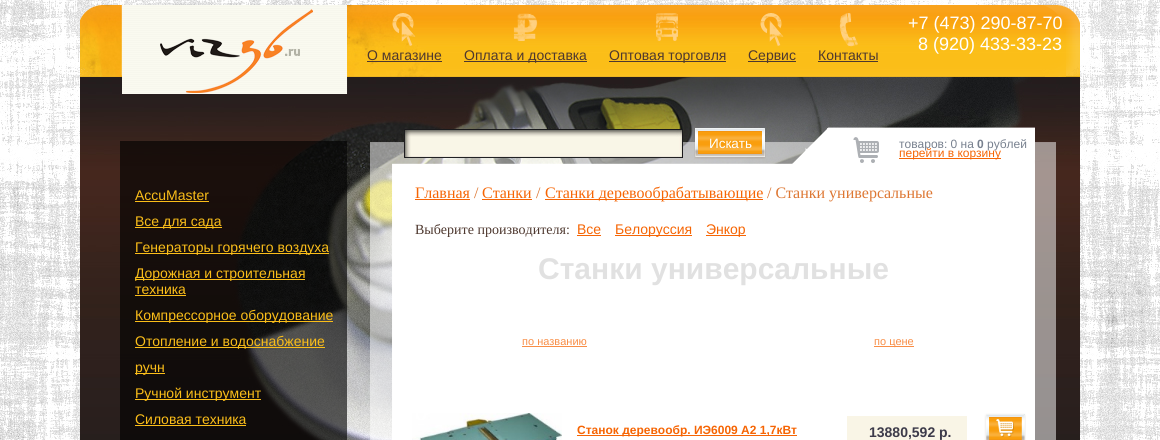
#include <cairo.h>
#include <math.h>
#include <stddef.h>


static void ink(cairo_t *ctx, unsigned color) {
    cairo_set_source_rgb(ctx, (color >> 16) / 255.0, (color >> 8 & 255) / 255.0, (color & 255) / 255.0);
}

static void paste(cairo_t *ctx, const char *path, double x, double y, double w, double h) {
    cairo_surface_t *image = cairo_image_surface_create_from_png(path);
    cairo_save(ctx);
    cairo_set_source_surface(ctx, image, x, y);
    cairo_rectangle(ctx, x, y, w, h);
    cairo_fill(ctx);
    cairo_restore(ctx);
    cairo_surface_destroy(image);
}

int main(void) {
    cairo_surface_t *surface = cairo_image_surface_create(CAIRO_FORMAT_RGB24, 1160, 440);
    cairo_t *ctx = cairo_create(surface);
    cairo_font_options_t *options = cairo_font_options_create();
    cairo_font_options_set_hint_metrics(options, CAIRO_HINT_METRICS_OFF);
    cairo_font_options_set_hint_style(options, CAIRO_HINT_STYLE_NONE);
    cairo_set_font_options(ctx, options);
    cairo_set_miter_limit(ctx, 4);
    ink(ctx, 0xFFFFFF);
    cairo_paint(ctx);
    paste(ctx, "media/1.png", 0, 0, 1160, 440);
    paste(ctx, "media/2.png", 80, 5, 1000, 72);
    paste(ctx, "media/9.png", 80, 77, 1000, 363);
    paste(ctx, "media/3.png", 121, 5, 227, 89);
    cairo_select_font_face(ctx, "Liberation Sans", CAIRO_FONT_SLANT_NORMAL, CAIRO_FONT_WEIGHT_NORMAL);
    cairo_set_font_size(ctx, 18);
    ink(ctx, 0xFFFFFF);
    cairo_move_to(ctx, 908, 29);
    cairo_show_text(ctx, "+7 (473) 290-87-70");
    cairo_move_to(ctx, 918, 50);
    cairo_show_text(ctx, "8 (920) 433-33-23");
    paste(ctx, "media/4.png", 392, 13, 24, 33);
    cairo_set_font_size(ctx, 14);
    ink(ctx, 0x4E382F);
    cairo_move_to(ctx, 367, 60);
    cairo_show_text(ctx, "О магазине");
    cairo_rectangle(ctx, 367, 61, 75, 1);
    cairo_fill(ctx);
    paste(ctx, "media/5.png", 513, 13, 25, 28);
    cairo_rectangle(ctx, 464, 61, 123, 1);
    cairo_fill(ctx);
    cairo_move_to(ctx, 464, 60);
    cairo_show_text(ctx, "Оплата и доставка");
    paste(ctx, "media/6.png", 656, 13, 22, 28);
    cairo_rectangle(ctx, 609, 61, 117, 1);
    cairo_fill(ctx);
    cairo_move_to(ctx, 609, 60);
    cairo_show_text(ctx, "Оптовая торговля");
    paste(ctx, "media/7.png", 760, 13, 24, 33);
    cairo_rectangle(ctx, 748, 61, 48, 1);
    cairo_fill(ctx);
    cairo_move_to(ctx, 748, 60);
    cairo_show_text(ctx, "Сервис");
    paste(ctx, "media/8.png", 839, 13, 19, 34);
    cairo_move_to(ctx, 818, 60);
    cairo_show_text(ctx, "Контакты");
    cairo_rectangle(ctx, 818, 61, 60, 1);
    cairo_fill(ctx);
    cairo_set_source_rgba(ctx, 0, 0, 0, 0.62);
    cairo_rectangle(ctx, 120, 141, 227, 299);
    cairo_fill(ctx);
    ink(ctx, 0xFBBE19);
    cairo_move_to(ctx, 135, 200);
    cairo_show_text(ctx, "AccuMaster");
    cairo_rectangle(ctx, 135, 201, 74, 1);
    cairo_fill(ctx);
    cairo_rectangle(ctx, 135, 227, 87, 1);
    cairo_fill(ctx);
    cairo_move_to(ctx, 135, 226);
    cairo_show_text(ctx, "Все для сада");
    cairo_rectangle(ctx, 135, 253, 194, 1);
    cairo_fill(ctx);
    cairo_move_to(ctx, 135, 252);
    cairo_show_text(ctx, "Генераторы горячего воздуха");
    cairo_rectangle(ctx, 135, 279, 170, 1);
    cairo_fill(ctx);
    cairo_move_to(ctx, 135, 278);
    cairo_show_text(ctx, "Дорожная и строительная");
    cairo_move_to(ctx, 135, 294);
    cairo_show_text(ctx, "техника");
    cairo_rectangle(ctx, 135, 295, 51, 1);
    cairo_fill(ctx);
    cairo_rectangle(ctx, 135, 321, 198, 1);
    cairo_fill(ctx);
    cairo_move_to(ctx, 135, 320);
    cairo_show_text(ctx, "Компрессорное оборудование");
    cairo_rectangle(ctx, 135, 347, 190, 1);
    cairo_fill(ctx);
    cairo_move_to(ctx, 135, 346);
    cairo_show_text(ctx, "Отопление и водоснабжение");
    cairo_rectangle(ctx, 135, 373, 30, 1);
    cairo_fill(ctx);
    cairo_move_to(ctx, 135, 372);
    cairo_show_text(ctx, "ручн");
    cairo_rectangle(ctx, 135, 399, 126, 1);
    cairo_fill(ctx);
    cairo_move_to(ctx, 135, 398);
    cairo_show_text(ctx, "Ручной инструмент");
    cairo_move_to(ctx, 135, 424);
    cairo_show_text(ctx, "Силовая техника");
    cairo_rectangle(ctx, 135, 425, 111, 1);
    cairo_fill(ctx);
    paste(ctx, "media/10.png", 370, 127, 686, 40);
    paste(ctx, "media/11.png", 404, 129, 279, 29);
    paste(ctx, "media/12.png", 694, 128, 72, 31);
    cairo_set_font_size(ctx, 13.5);
    ink(ctx, 0xFFFFFF);
    cairo_move_to(ctx, 709, 148);
    cairo_show_text(ctx, "Искать");
    paste(ctx, "media/13.png", 853, 137, 26, 26);
    cairo_set_font_size(ctx, 12);
    ink(ctx, 0x78818F);
    cairo_move_to(ctx, 899, 148);
    cairo_show_text(ctx, "товаров: 0 на");
    cairo_select_font_face(ctx, "Liberation Sans", CAIRO_FONT_SLANT_NORMAL, CAIRO_FONT_WEIGHT_BOLD);
    cairo_move_to(ctx, 977, 148);
    cairo_show_text(ctx, "0");
    cairo_select_font_face(ctx, "Liberation Sans", CAIRO_FONT_SLANT_NORMAL, CAIRO_FONT_WEIGHT_NORMAL);
    cairo_move_to(ctx, 987, 148);
    cairo_show_text(ctx, "рублей");
    ink(ctx, 0xF66504);
    cairo_rectangle(ctx, 899, 158, 102, 1);
    cairo_fill(ctx);
    cairo_move_to(ctx, 899, 157);
    cairo_show_text(ctx, "перейти в корзину");
    paste(ctx, "media/14.png", 370, 167, 686, 273);
    cairo_select_font_face(ctx, "Liberation Serif", CAIRO_FONT_SLANT_NORMAL, CAIRO_FONT_WEIGHT_NORMAL);
    cairo_set_font_size(ctx, 16);
    cairo_move_to(ctx, 415, 198);
    cairo_show_text(ctx, "Главная");
    cairo_rectangle(ctx, 415, 199, 55, 1);
    cairo_fill(ctx);
    ink(ctx, 0xDD7733);
    cairo_move_to(ctx, 474, 198);
    cairo_show_text(ctx, "/");
    ink(ctx, 0xF66504);
    cairo_move_to(ctx, 482, 198);
    cairo_show_text(ctx, "Станки");
    cairo_rectangle(ctx, 482, 199, 50, 1);
    cairo_fill(ctx);
    ink(ctx, 0xDD7733);
    cairo_move_to(ctx, 536, 198);
    cairo_show_text(ctx, "/");
    ink(ctx, 0xF66504);
    cairo_rectangle(ctx, 545, 199, 218, 1);
    cairo_fill(ctx);
    cairo_move_to(ctx, 545, 198);
    cairo_show_text(ctx, "Станки деревообрабатывающие");
    ink(ctx, 0xDD7733);
    cairo_move_to(ctx, 767, 198);
    cairo_show_text(ctx, "/ Станки универсальные");
    cairo_set_font_size(ctx, 14);
    ink(ctx, 0x4E382F);
    cairo_move_to(ctx, 415, 234);
    cairo_show_text(ctx, "Выберите производителя:");
    cairo_select_font_face(ctx, "Liberation Sans", CAIRO_FONT_SLANT_NORMAL, CAIRO_FONT_WEIGHT_NORMAL);
    ink(ctx, 0xF66504);
    cairo_move_to(ctx, 577, 234);
    cairo_show_text(ctx, "Все");
    cairo_rectangle(ctx, 577, 235, 24, 1);
    cairo_fill(ctx);
    cairo_rectangle(ctx, 615, 235, 77, 1);
    cairo_fill(ctx);
    cairo_move_to(ctx, 615, 234);
    cairo_show_text(ctx, "Белоруссия");
    cairo_rectangle(ctx, 706, 235, 40, 1);
    cairo_fill(ctx);
    cairo_move_to(ctx, 706, 234);
    cairo_show_text(ctx, "Энкор");
    cairo_select_font_face(ctx, "Liberation Sans", CAIRO_FONT_SLANT_NORMAL, CAIRO_FONT_WEIGHT_BOLD);
    cairo_set_font_size(ctx, 30);
    ink(ctx, 0xE1E1E1);
    cairo_move_to(ctx, 538, 279);
    cairo_show_text(ctx, "Станки универсальные");
    cairo_select_font_face(ctx, "Liberation Sans", CAIRO_FONT_SLANT_NORMAL, CAIRO_FONT_WEIGHT_NORMAL);
    cairo_set_font_size(ctx, 11);
    ink(ctx, 0xF88E47);
    cairo_move_to(ctx, 522, 345);
    cairo_show_text(ctx, "по названию");
    cairo_rectangle(ctx, 522, 346, 65, 1);
    cairo_fill(ctx);
    cairo_rectangle(ctx, 874, 346, 40, 1);
    cairo_fill(ctx);
    cairo_move_to(ctx, 874, 345);
    cairo_show_text(ctx, "по цене");
    paste(ctx, "media/15.png", 412, 413, 150, 27);
    ink(ctx, 0xF66504);
    cairo_rectangle(ctx, 577, 435, 220, 1);
    cairo_fill(ctx);
    cairo_select_font_face(ctx, "Liberation Sans", CAIRO_FONT_SLANT_NORMAL, CAIRO_FONT_WEIGHT_BOLD);
    cairo_set_font_size(ctx, 12);
    cairo_move_to(ctx, 577, 434);
    cairo_show_text(ctx, "Станок деревообр. ИЭ6009 А2 1,7кВт");
    ink(ctx, 0xF9F5E6);
    cairo_rectangle(ctx, 847, 416, 120, 24);
    cairo_fill(ctx);
    cairo_set_font_size(ctx, 14);
    ink(ctx, 0x3D3B4A);
    cairo_move_to(ctx, 869, 437);
    cairo_show_text(ctx, "13880,592 р.");
    paste(ctx, "media/16.png", 984, 413, 42, 27);
    cairo_surface_write_to_png(surface, "image.png");
    cairo_font_options_destroy(options);
    cairo_destroy(ctx);
    cairo_surface_destroy(surface);
    return 0;
}
